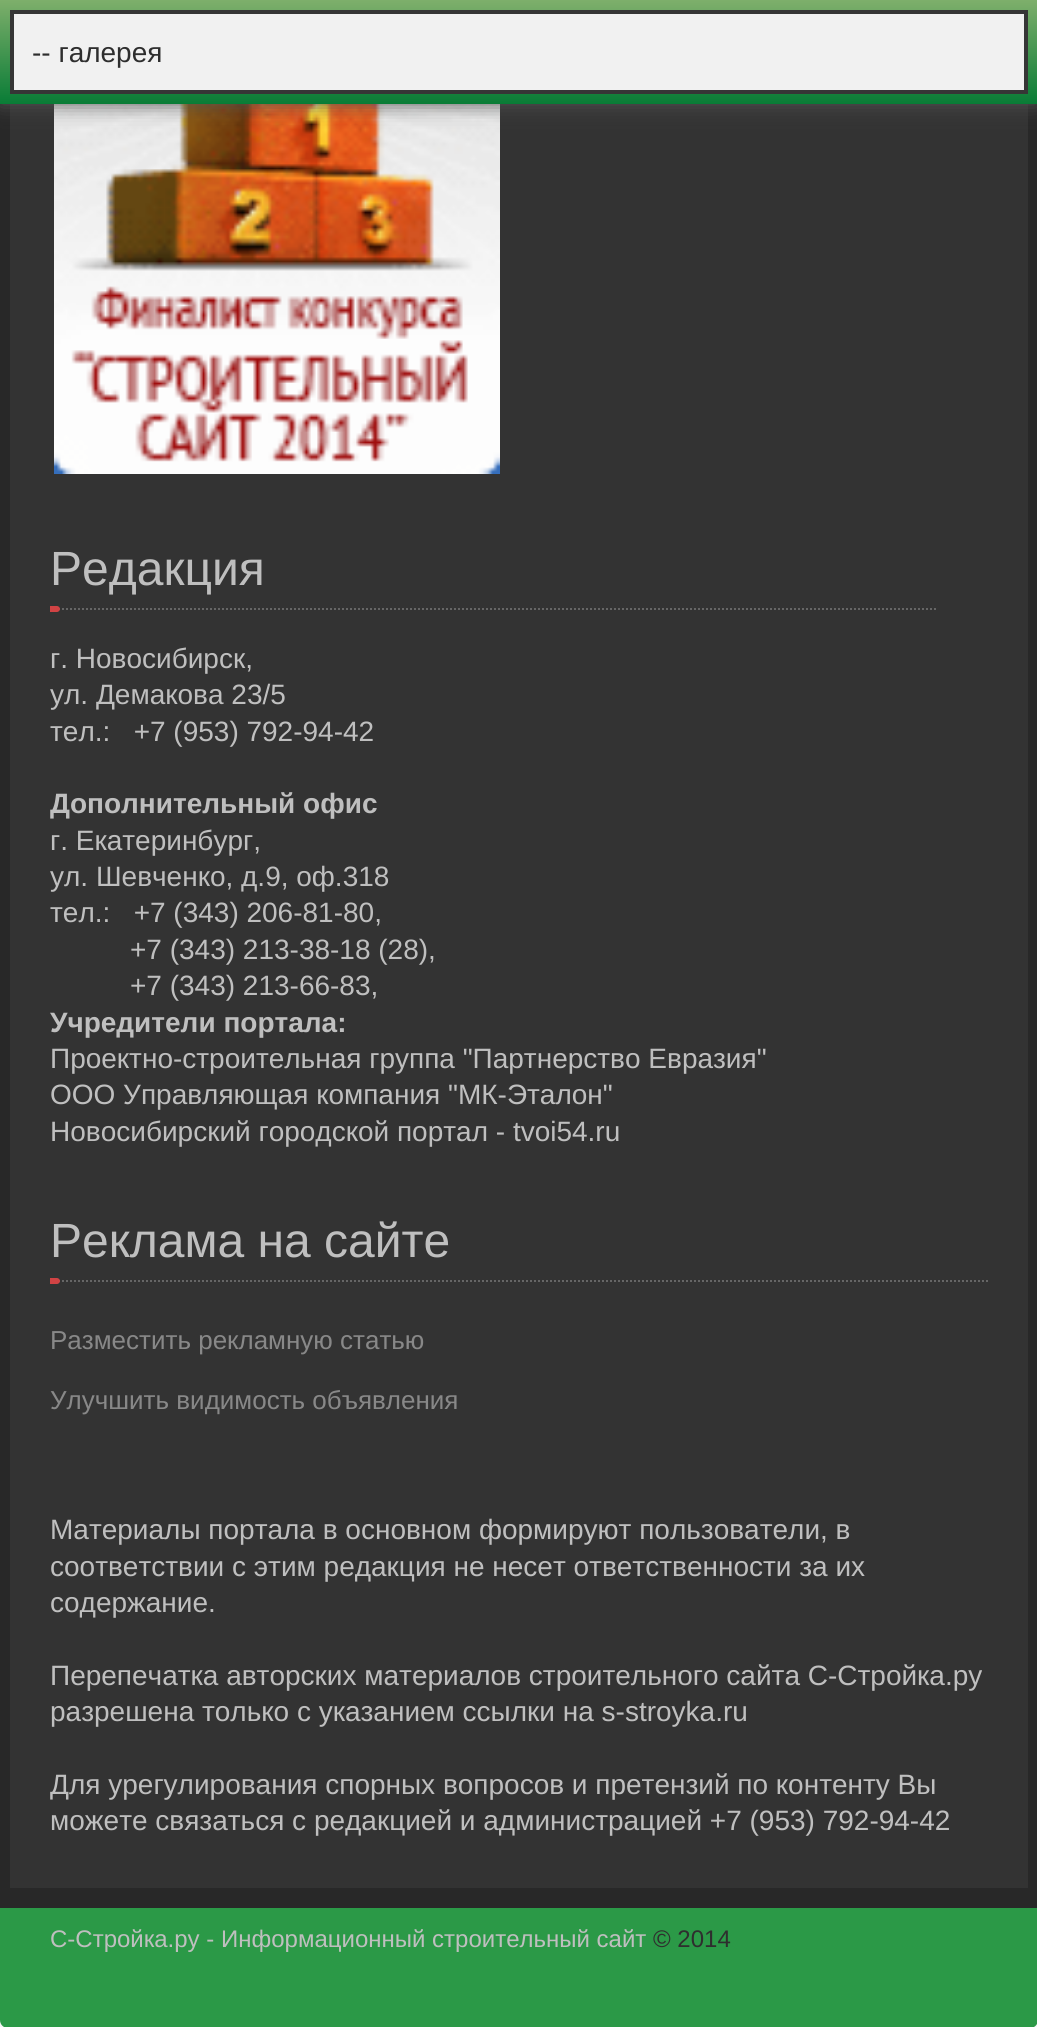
#include <cairo.h>
#include <math.h>
#include <stddef.h>

typedef struct { double x, y; const char *s; } line_t;

static void ink(cairo_t *ctx, unsigned color) {
    cairo_set_source_rgb(ctx, (color >> 16) / 255.0, (color >> 8 & 255) / 255.0, (color & 255) / 255.0);
}

static void round_path(cairo_t *ctx, double x, double y, double w, double h, double r) {
    cairo_new_sub_path(ctx);
    cairo_arc(ctx, x + w - r, y + h - r, r, 0, M_PI / 2);
    cairo_arc(ctx, x + r, y + h - r, r, M_PI / 2, M_PI);
    cairo_arc(ctx, x + r, y + r, r, M_PI, 1.5 * M_PI);
    cairo_arc(ctx, x + w - r, y + r, r, 1.5 * M_PI, 2 * M_PI);
    cairo_close_path(ctx);
}

static void blur_box(cairo_t *ctx, double x, double y, double w, double h, double r, double blur, double alpha) {
    cairo_push_group_with_content(ctx, CAIRO_CONTENT_ALPHA);
    cairo_set_operator(ctx, CAIRO_OPERATOR_SOURCE);
    for (int i = 15; i >= -15 && fmin(w, h) + blur * i / 3 > 0; i -= 2) {
        double e = blur * i / 6;
        cairo_set_source_rgba(ctx, 0, 0, 0, alpha * erfc((i - 1) / 8.5) / 2);
        round_path(ctx, x - e, y - e, w + 2 * e, h + 2 * e, fmax(0, fmin(r + e + blur * .6, fmin(w, h) / 2 + e)));
        cairo_fill(ctx);
    }
    cairo_pattern_t *soft = cairo_pop_group(ctx);
    cairo_mask(ctx, soft);
    cairo_pattern_destroy(soft);
}

static void paste(cairo_t *ctx, const char *path, double x, double y, double w, double h) {
    cairo_surface_t *image = cairo_image_surface_create_from_png(path);
    cairo_save(ctx);
    cairo_set_source_surface(ctx, image, x, y);
    cairo_rectangle(ctx, x, y, w, h);
    cairo_fill(ctx);
    cairo_restore(ctx);
    cairo_surface_destroy(image);
}

int main(void) {
    cairo_surface_t *surface = cairo_image_surface_create(CAIRO_FORMAT_RGB24, 1037, 2027);
    cairo_t *ctx = cairo_create(surface);
    cairo_font_options_t *options = cairo_font_options_create();
    cairo_font_options_set_hint_metrics(options, CAIRO_HINT_METRICS_OFF);
    cairo_font_options_set_hint_style(options, CAIRO_HINT_STYLE_NONE);
    cairo_set_font_options(ctx, options);
    cairo_set_miter_limit(ctx, 4);
    cairo_pattern_t *gradient;
    ink(ctx, 0xF5F5F5);
    cairo_paint(ctx);
    ink(ctx, 0x282828);
    cairo_rectangle(ctx, 0, 104, 1037, 1804);
    cairo_fill(ctx);
    ink(ctx, 0x333333);
    cairo_rectangle(ctx, 10, 104, 1018, 1784);
    cairo_fill(ctx);
    paste(ctx, "media/1.png", 54, 104, 446, 370);
    ink(ctx, 0x555555);
    blur_box(ctx, 0, 0, 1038, 104, 0, 10, 1);
    gradient = cairo_pattern_create_linear(519, 0, 519, 104);
    cairo_pattern_add_color_stop_rgba(gradient, 0, 0.494, 0.686, 0.42, 1);
    cairo_pattern_add_color_stop_rgba(gradient, 1, 0.035, 0.486, 0.212, 1);
    cairo_set_source(ctx, gradient);
    cairo_pattern_destroy(gradient);
    cairo_rectangle(ctx, 0, 0, 1037, 104);
    cairo_fill(ctx);
    ink(ctx, 0xF1F1F1);
    cairo_rectangle(ctx, 12, 12, 1014, 80);
    cairo_fill_preserve(ctx);
    ink(ctx, 0x363636);
    cairo_set_line_width(ctx, 4);
    cairo_stroke(ctx);
    cairo_select_font_face(ctx, "Liberation Sans", CAIRO_FONT_SLANT_NORMAL, CAIRO_FONT_WEIGHT_NORMAL);
    cairo_set_font_size(ctx, 28);
    ink(ctx, 0x2E2E2E);
    cairo_move_to(ctx, 32, 62);
    cairo_show_text(ctx, "-- галерея");
    cairo_new_path(ctx);
    cairo_move_to(ctx, 50, 609);
    cairo_line_to(ctx, 938, 609);
    ink(ctx, 0x666666);
    cairo_set_line_width(ctx, 2);
    cairo_set_dash(ctx, (double[]){2, 2}, 2, 0);
    cairo_stroke(ctx);
    cairo_set_font_size(ctx, 48);
    ink(ctx, 0xBFBFBF);
    cairo_move_to(ctx, 50, 585);
    cairo_show_text(ctx, "Редакция");
    ink(ctx, 0xD14344);
    cairo_new_path(ctx);
    cairo_move_to(ctx, 50, 606);
    cairo_line_to(ctx, 57, 606);
    cairo_curve_to(ctx, 58.5, 606, 60, 607.5, 60, 609);
    cairo_curve_to(ctx, 60, 610.5, 58.5, 612, 57, 612);
    cairo_line_to(ctx, 50, 612);
    cairo_close_path(ctx);
    cairo_fill(ctx);
    cairo_set_font_size(ctx, 28);
    ink(ctx, 0xBFBFBF);
    {
        static const line_t items[] = {
            {50, 668, "г. Новосибирск,"},
            {50, 704, "ул. Демакова 23/5"},
            {50, 741, "тел.:   +7 (953) 792-94-42"},
        };
        for (size_t i = 0; i < sizeof items / sizeof *items; i++) {
            cairo_move_to(ctx, items[i].x, items[i].y);
            cairo_show_text(ctx, items[i].s);
        }
    }
    cairo_select_font_face(ctx, "Liberation Sans", CAIRO_FONT_SLANT_NORMAL, CAIRO_FONT_WEIGHT_BOLD);
    cairo_move_to(ctx, 50, 813);
    cairo_show_text(ctx, "Дополнительный офис");
    cairo_select_font_face(ctx, "Liberation Sans", CAIRO_FONT_SLANT_NORMAL, CAIRO_FONT_WEIGHT_NORMAL);
    {
        static const line_t items[] = {
            {50, 850, "г. Екатеринбург,"},
            {50, 886, "ул. Шевченко, д.9, оф.318"},
            {50, 922, "тел.:   +7 (343) 206-81-80,"},
            {130, 959, "+7 (343) 213-38-18 (28),"},
            {130, 995, "+7 (343) 213-66-83,"},
        };
        for (size_t i = 0; i < sizeof items / sizeof *items; i++) {
            cairo_move_to(ctx, items[i].x, items[i].y);
            cairo_show_text(ctx, items[i].s);
        }
    }
    cairo_select_font_face(ctx, "Liberation Sans", CAIRO_FONT_SLANT_NORMAL, CAIRO_FONT_WEIGHT_BOLD);
    cairo_move_to(ctx, 50, 1032);
    cairo_show_text(ctx, "Учредители портала:");
    cairo_select_font_face(ctx, "Liberation Sans", CAIRO_FONT_SLANT_NORMAL, CAIRO_FONT_WEIGHT_NORMAL);
    {
        static const line_t items[] = {
            {50, 1068, "Проектно-строительная группа \"Партнерство Евразия\""},
            {50, 1104, "ООО Управляющая компания \"МК-Эталон\""},
            {50, 1141, "Новосибирский городской портал - tvoi54.ru"},
        };
        for (size_t i = 0; i < sizeof items / sizeof *items; i++) {
            cairo_move_to(ctx, items[i].x, items[i].y);
            cairo_show_text(ctx, items[i].s);
        }
    }
    cairo_new_path(ctx);
    cairo_move_to(ctx, 50, 1281);
    cairo_line_to(ctx, 988, 1281);
    ink(ctx, 0x666666);
    cairo_stroke(ctx);
    cairo_set_font_size(ctx, 48);
    ink(ctx, 0xBFBFBF);
    cairo_move_to(ctx, 50, 1257);
    cairo_show_text(ctx, "Реклама на сайте");
    ink(ctx, 0xD14344);
    cairo_new_path(ctx);
    cairo_move_to(ctx, 50, 1278);
    cairo_line_to(ctx, 57, 1278);
    cairo_curve_to(ctx, 58.5, 1278, 60, 1279.5, 60, 1281);
    cairo_curve_to(ctx, 60, 1282.5, 58.5, 1284, 57, 1284);
    cairo_line_to(ctx, 50, 1284);
    cairo_close_path(ctx);
    cairo_fill(ctx);
    cairo_set_font_size(ctx, 26);
    ink(ctx, 0x888888);
    cairo_move_to(ctx, 50, 1349);
    cairo_show_text(ctx, "Разместить рекламную статью");
    cairo_move_to(ctx, 50, 1409);
    cairo_show_text(ctx, "Улучшить видимость объявления");
    cairo_set_font_size(ctx, 28);
    ink(ctx, 0xBFBFBF);
    {
        static const line_t items[] = {
            {50, 1539, "Материалы портала в основном формируют пользователи, в"},
            {50, 1576, "соответствии с этим редакция не несет ответственности за их"},
            {50, 1612, "содержание."},
            {50, 1685, "Перепечатка авторских материалов строительного сайта С-Стройка.ру"},
            {50, 1721, "разрешена только с указанием ссылки на s-stroyka.ru"},
            {50, 1794, "Для урегулирования спорных вопросов и претензий по контенту Вы"},
            {50, 1830, "можете связаться с редакцией и администрацией +7 (953) 792-94-42"},
        };
        for (size_t i = 0; i < sizeof items / sizeof *items; i++) {
            cairo_move_to(ctx, items[i].x, items[i].y);
            cairo_show_text(ctx, items[i].s);
        }
    }
    ink(ctx, 0x2B9947);
    cairo_new_path(ctx);
    cairo_move_to(ctx, 0, 1908);
    cairo_line_to(ctx, 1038, 1908);
    cairo_line_to(ctx, 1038, 2020);
    cairo_curve_to(ctx, 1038, 2024.5, 1034.5, 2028, 1030, 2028);
    cairo_line_to(ctx, 8, 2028);
    cairo_curve_to(ctx, 3.5, 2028, 0, 2024.5, 0, 2020);
    cairo_close_path(ctx);
    cairo_fill(ctx);
    cairo_set_font_size(ctx, 24);
    ink(ctx, 0xBFBFBF);
    cairo_move_to(ctx, 50, 1947);
    cairo_show_text(ctx, "С-Стройка.ру - Информационный строительный сайт");
    ink(ctx, 0x2E2E2E);
    cairo_move_to(ctx, 653, 1947);
    cairo_show_text(ctx, "© 2014");
    cairo_surface_write_to_png(surface, "image.png");
    cairo_font_options_destroy(options);
    cairo_destroy(ctx);
    cairo_surface_destroy(surface);
    return 0;
}
